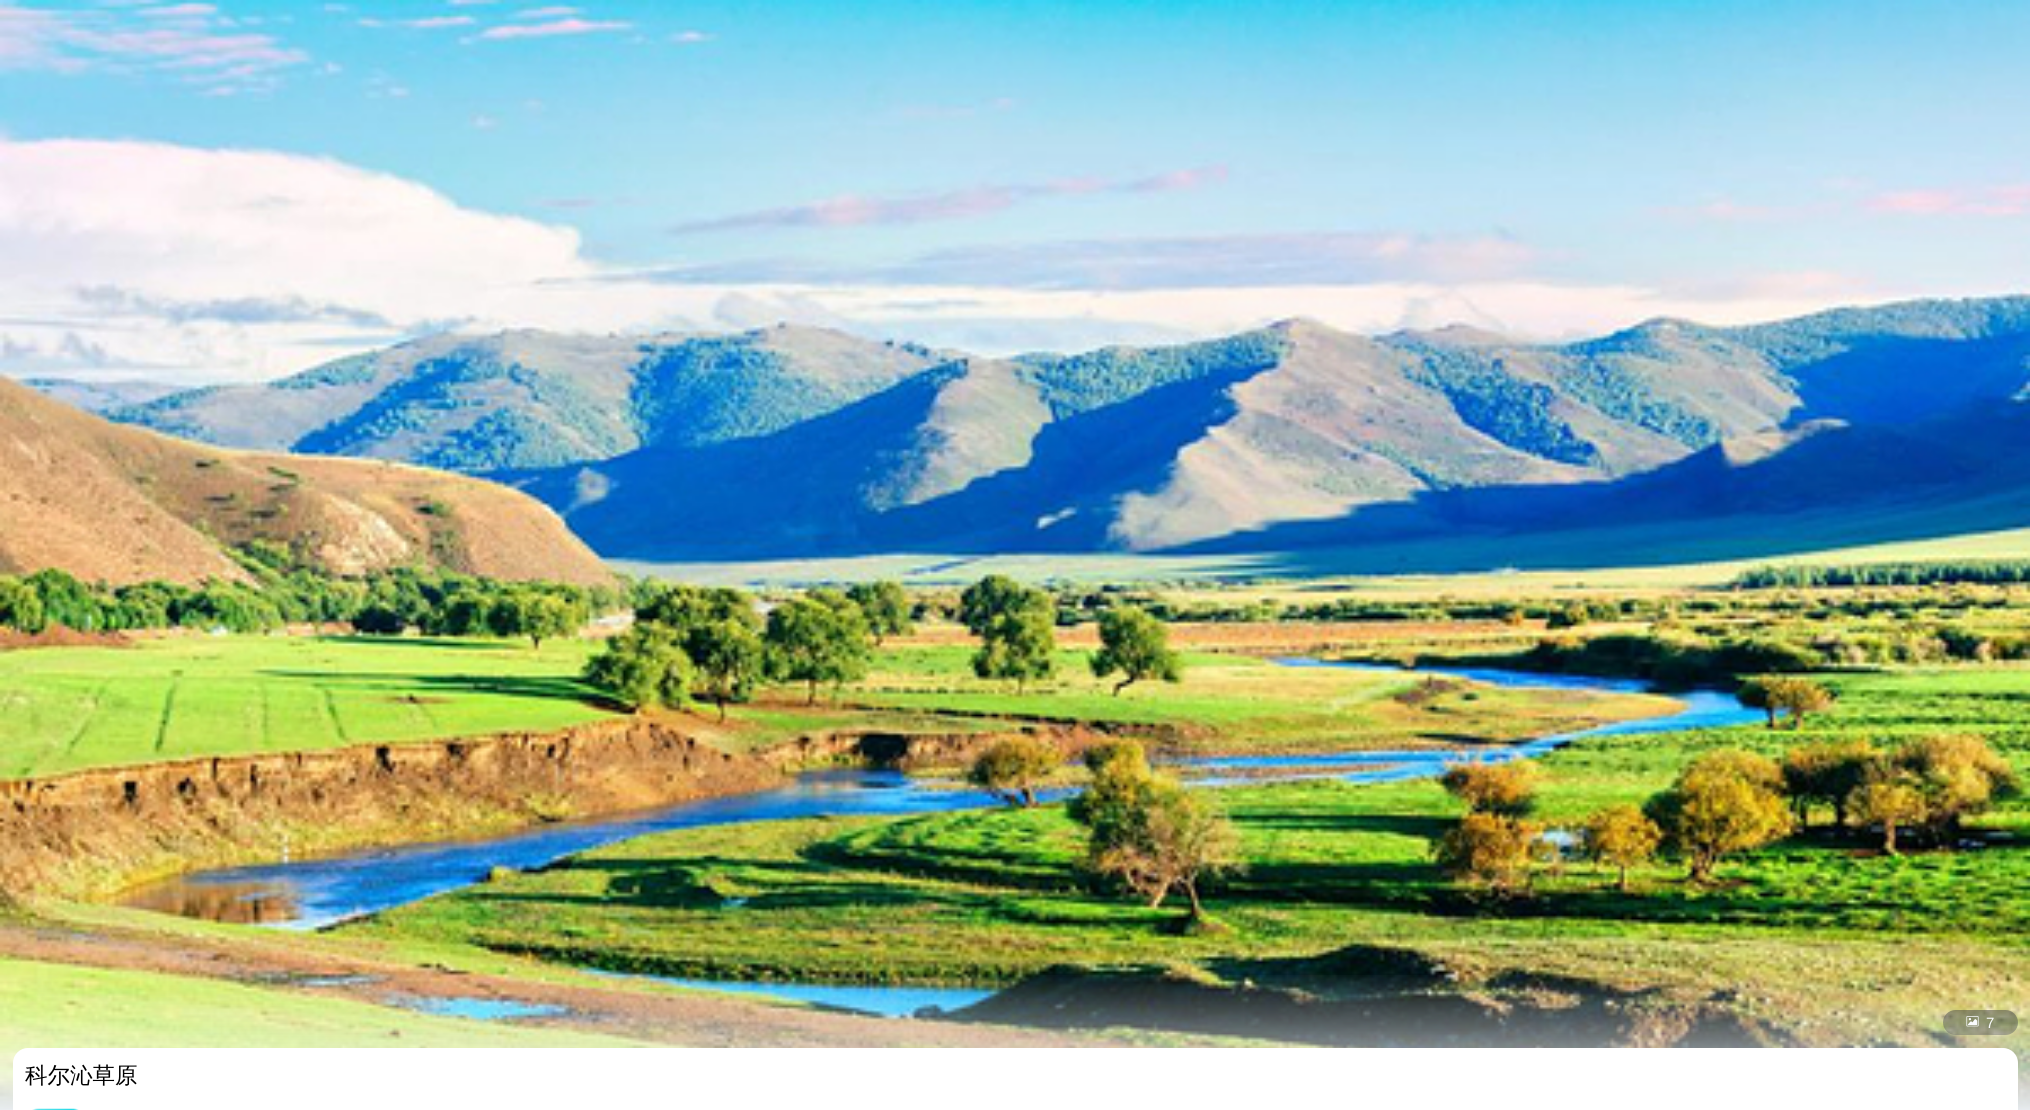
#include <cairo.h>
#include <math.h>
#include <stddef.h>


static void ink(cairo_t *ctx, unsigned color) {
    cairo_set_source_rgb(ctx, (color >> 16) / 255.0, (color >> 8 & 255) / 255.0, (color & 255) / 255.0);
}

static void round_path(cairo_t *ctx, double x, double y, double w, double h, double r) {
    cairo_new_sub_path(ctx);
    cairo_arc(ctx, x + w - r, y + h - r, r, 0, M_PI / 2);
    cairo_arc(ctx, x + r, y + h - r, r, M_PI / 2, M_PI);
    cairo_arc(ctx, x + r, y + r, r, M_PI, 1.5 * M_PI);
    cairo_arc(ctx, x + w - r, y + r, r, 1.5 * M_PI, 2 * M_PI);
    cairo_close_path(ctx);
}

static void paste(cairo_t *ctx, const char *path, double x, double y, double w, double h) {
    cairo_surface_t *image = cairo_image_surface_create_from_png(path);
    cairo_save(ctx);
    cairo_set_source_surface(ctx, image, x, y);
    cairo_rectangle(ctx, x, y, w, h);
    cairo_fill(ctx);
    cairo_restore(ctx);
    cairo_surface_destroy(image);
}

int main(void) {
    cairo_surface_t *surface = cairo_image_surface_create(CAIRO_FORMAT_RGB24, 2030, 1110);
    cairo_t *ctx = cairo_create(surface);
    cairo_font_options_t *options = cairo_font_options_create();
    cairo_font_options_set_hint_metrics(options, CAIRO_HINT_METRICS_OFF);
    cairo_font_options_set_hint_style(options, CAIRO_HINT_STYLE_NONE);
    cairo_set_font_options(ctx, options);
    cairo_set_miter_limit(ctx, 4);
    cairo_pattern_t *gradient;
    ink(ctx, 0xFFFFFF);
    cairo_paint(ctx);
    paste(ctx, "media/1.png", 0, 0, 2030, 1110);
    cairo_set_source_rgba(ctx, 0, 0, 0, 0.5);
    round_path(ctx, 1943, 1010, 75, 25, 12.5);
    cairo_fill(ctx);
    paste(ctx, "media/2.png", 1966, 1016, 13, 11);
    cairo_select_font_face(ctx, "Liberation Sans", CAIRO_FONT_SLANT_NORMAL, CAIRO_FONT_WEIGHT_NORMAL);
    cairo_set_font_size(ctx, 15);
    ink(ctx, 0xFFFFFF);
    cairo_move_to(ctx, 1986, 1028);
    cairo_show_text(ctx, "7");
    gradient = cairo_pattern_create_linear(1015, 972, 1015, 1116);
    cairo_pattern_add_color_stop_rgba(gradient, 0, 0.941, 0.957, 0.976, 0);
    cairo_pattern_add_color_stop_rgba(gradient, 1, 0.941, 0.957, 0.976, 1);
    cairo_set_source(ctx, gradient);
    cairo_pattern_destroy(gradient);
    cairo_rectangle(ctx, 0, 975, 2030, 135);
    cairo_fill(ctx);
    ink(ctx, 0xFFFFFF);
    round_path(ctx, 13, 1048, 2005, 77, 15);
    cairo_fill(ctx);
    cairo_select_font_face(ctx, "WenQuanYi Zen Hei Medium", CAIRO_FONT_SLANT_NORMAL, CAIRO_FONT_WEIGHT_NORMAL);
    cairo_set_font_size(ctx, 22.5);
    ink(ctx, 0x000000);
    cairo_move_to(ctx, 25, 1083);
    cairo_show_text(ctx, "科尔沁草原");
    paste(ctx, "media/3.png", 32, 1108, 47, 2);
    cairo_surface_write_to_png(surface, "image.png");
    cairo_font_options_destroy(options);
    cairo_destroy(ctx);
    cairo_surface_destroy(surface);
    return 0;
}
